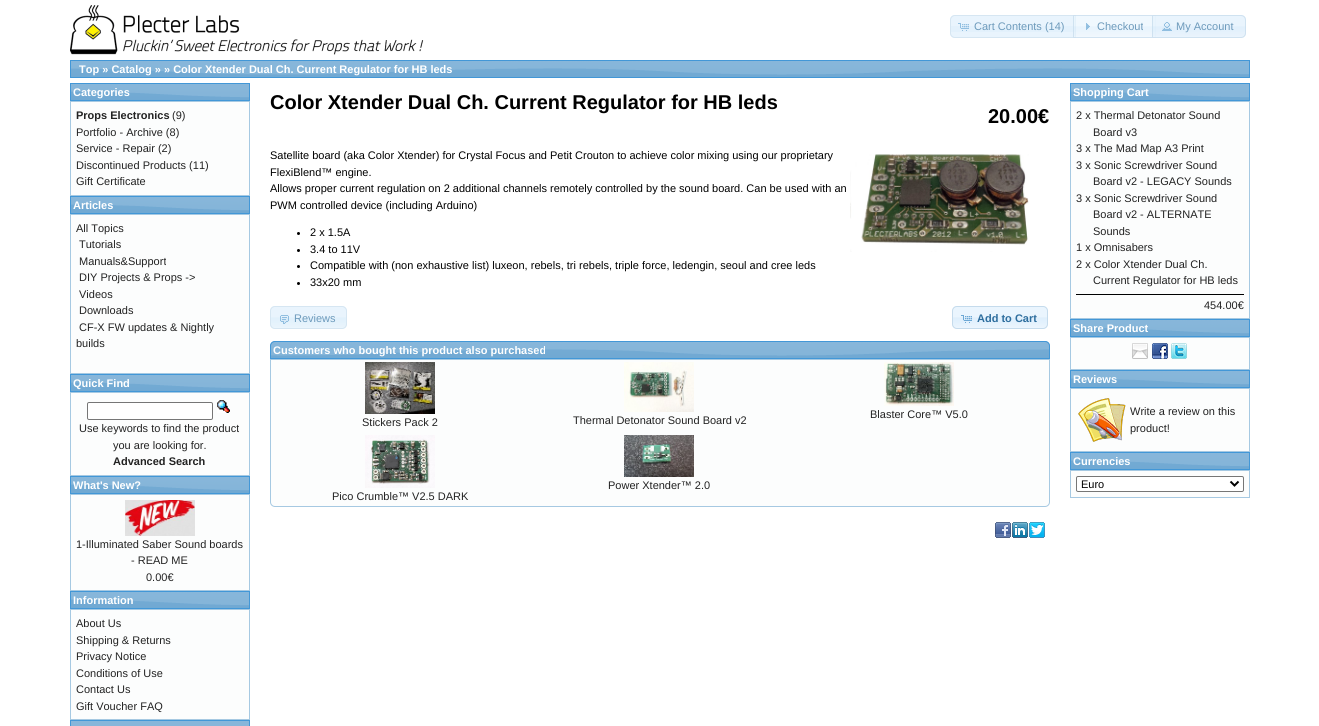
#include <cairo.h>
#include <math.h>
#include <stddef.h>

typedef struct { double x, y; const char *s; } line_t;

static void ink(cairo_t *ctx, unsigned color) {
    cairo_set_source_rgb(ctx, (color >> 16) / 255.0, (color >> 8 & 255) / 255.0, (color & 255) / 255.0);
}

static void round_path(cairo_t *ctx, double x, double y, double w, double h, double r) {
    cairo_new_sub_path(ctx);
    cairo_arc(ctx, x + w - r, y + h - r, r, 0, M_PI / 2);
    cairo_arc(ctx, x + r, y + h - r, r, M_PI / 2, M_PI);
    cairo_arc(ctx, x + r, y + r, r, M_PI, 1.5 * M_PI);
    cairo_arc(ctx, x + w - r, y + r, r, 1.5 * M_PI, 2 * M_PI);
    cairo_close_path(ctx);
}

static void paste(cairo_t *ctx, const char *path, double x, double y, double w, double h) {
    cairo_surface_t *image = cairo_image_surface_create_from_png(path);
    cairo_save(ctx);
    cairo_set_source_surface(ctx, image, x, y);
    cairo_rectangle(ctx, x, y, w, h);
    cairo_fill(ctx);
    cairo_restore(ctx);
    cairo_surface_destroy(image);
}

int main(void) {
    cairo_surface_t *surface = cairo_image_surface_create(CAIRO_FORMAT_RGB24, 1319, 726);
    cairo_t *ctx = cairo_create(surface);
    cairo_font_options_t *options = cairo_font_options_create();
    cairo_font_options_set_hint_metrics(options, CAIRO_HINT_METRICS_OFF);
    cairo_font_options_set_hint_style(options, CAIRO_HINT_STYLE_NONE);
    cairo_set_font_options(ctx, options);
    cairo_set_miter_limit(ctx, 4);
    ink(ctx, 0xFFFFFF);
    cairo_paint(ctx);
    paste(ctx, "media/1.png", 70, 5, 354, 50);
    ink(ctx, 0xE9F4FD);
    cairo_new_path(ctx);
    cairo_move_to(ctx, 955, 15);
    cairo_line_to(ctx, 1076, 15);
    cairo_line_to(ctx, 1076, 38);
    cairo_line_to(ctx, 955, 38);
    cairo_curve_to(ctx, 952, 38, 950, 36, 950, 33);
    cairo_line_to(ctx, 950, 20);
    cairo_curve_to(ctx, 950, 17, 952, 15, 955, 15);
    cairo_close_path(ctx);
    cairo_fill(ctx);
    ink(ctx, 0xE3F1FC);
    cairo_rectangle(ctx, 950, 26, 126, 6);
    cairo_fill(ctx);
    cairo_new_path(ctx);
    cairo_move_to(ctx, 955, 15.5);
    cairo_line_to(ctx, 1075.5, 15.5);
    cairo_line_to(ctx, 1075.5, 37.5);
    cairo_line_to(ctx, 955, 37.5);
    cairo_curve_to(ctx, 952.5, 37.5, 950.5, 35.5, 950.5, 33);
    cairo_line_to(ctx, 950.5, 20);
    cairo_curve_to(ctx, 950.5, 17.5, 952.5, 15.5, 955, 15.5);
    cairo_close_path(ctx);
    ink(ctx, 0xD6E6F2);
    cairo_set_line_width(ctx, 1);
    cairo_stroke(ctx);
    paste(ctx, "media/2.png", 958, 23, 11, 8);
    cairo_select_font_face(ctx, "Liberation Sans", CAIRO_FONT_SLANT_NORMAL, CAIRO_FONT_WEIGHT_NORMAL);
    cairo_set_font_size(ctx, 11);
    ink(ctx, 0x6D9ABB);
    cairo_move_to(ctx, 974, 30);
    cairo_show_text(ctx, "Cart Contents (14)");
    paste(ctx, "media/3.png", 1073, 15, 83, 23);
    cairo_rectangle(ctx, 1073.5, 15.5, 82, 22);
    cairo_set_source_rgba(ctx, 0.773, 0.859, 0.925, 0.7);
    cairo_stroke(ctx);
    paste(ctx, "media/4.png", 1086, 23, 4, 7);
    ink(ctx, 0x6D9ABB);
    cairo_move_to(ctx, 1097, 30);
    cairo_show_text(ctx, "Checkout");
    cairo_set_source_rgba(ctx, 0.875, 0.937, 0.988, 0.7);
    cairo_new_path(ctx);
    cairo_move_to(ctx, 1152, 15);
    cairo_line_to(ctx, 1241, 15);
    cairo_curve_to(ctx, 1244, 15, 1246, 17, 1246, 20);
    cairo_line_to(ctx, 1246, 33);
    cairo_curve_to(ctx, 1246, 36, 1244, 38, 1241, 38);
    cairo_line_to(ctx, 1152, 38);
    cairo_close_path(ctx);
    cairo_fill(ctx);
    paste(ctx, "media/5.png", 1152, 15, 94, 23);
    cairo_new_path(ctx);
    cairo_move_to(ctx, 1152.5, 15.5);
    cairo_line_to(ctx, 1241, 15.5);
    cairo_curve_to(ctx, 1243.5, 15.5, 1245.5, 17.5, 1245.5, 20);
    cairo_line_to(ctx, 1245.5, 33);
    cairo_curve_to(ctx, 1245.5, 35.5, 1243.5, 37.5, 1241, 37.5);
    cairo_line_to(ctx, 1152.5, 37.5);
    cairo_close_path(ctx);
    cairo_set_source_rgba(ctx, 0.773, 0.859, 0.925, 0.7);
    cairo_stroke(ctx);
    paste(ctx, "media/6.png", 1162, 22, 10, 9);
    ink(ctx, 0x6D9ABB);
    cairo_move_to(ctx, 1176, 30);
    cairo_show_text(ctx, "My Account");
    paste(ctx, "media/7.png", 71, 61, 1178, 16);
    cairo_rectangle(ctx, 70.5, 60.5, 1179, 17);
    ink(ctx, 0x4297D7);
    cairo_stroke(ctx);
    cairo_select_font_face(ctx, "Liberation Sans", CAIRO_FONT_SLANT_NORMAL, CAIRO_FONT_WEIGHT_BOLD);
    ink(ctx, 0xFFFFFF);
    cairo_move_to(ctx, 79, 73);
    cairo_show_text(ctx, "Top » Catalog » » Color Xtender Dual Ch. Current Regulator for HB leds");
    paste(ctx, "media/8.png", 71, 84, 178, 16);
    cairo_rectangle(ctx, 70.5, 83.5, 179, 17);
    ink(ctx, 0x4297D7);
    cairo_stroke(ctx);
    ink(ctx, 0xFFFFFF);
    cairo_move_to(ctx, 73, 96);
    cairo_show_text(ctx, "Categories");
    ink(ctx, 0xFCFDFD);
    cairo_rectangle(ctx, 70.5, 101.5, 179, 94);
    cairo_fill_preserve(ctx);
    ink(ctx, 0xA6C9E2);
    cairo_stroke(ctx);
    ink(ctx, 0x222222);
    cairo_move_to(ctx, 76, 119);
    cairo_show_text(ctx, "Props Electronics");
    cairo_select_font_face(ctx, "Liberation Sans", CAIRO_FONT_SLANT_NORMAL, CAIRO_FONT_WEIGHT_NORMAL);
    {
        static const line_t items[] = {
            {172, 119, "(9)"},
            {76, 136, "Portfolio - Archive (8)"},
            {76, 152, "Service - Repair (2)"},
            {76, 169, "Discontinued Products (11)"},
            {76, 185, "Gift Certificate"},
        };
        for (size_t i = 0; i < sizeof items / sizeof *items; i++) {
            cairo_move_to(ctx, items[i].x, items[i].y);
            cairo_show_text(ctx, items[i].s);
        }
    }
    paste(ctx, "media/8.png", 71, 197, 178, 16);
    cairo_rectangle(ctx, 70.5, 196.5, 179, 17);
    ink(ctx, 0x4297D7);
    cairo_stroke(ctx);
    cairo_select_font_face(ctx, "Liberation Sans", CAIRO_FONT_SLANT_NORMAL, CAIRO_FONT_WEIGHT_BOLD);
    ink(ctx, 0xFFFFFF);
    cairo_move_to(ctx, 73, 209);
    cairo_show_text(ctx, "Articles");
    ink(ctx, 0xFCFDFD);
    cairo_rectangle(ctx, 70.5, 214.5, 179, 159);
    cairo_fill_preserve(ctx);
    ink(ctx, 0xA6C9E2);
    cairo_stroke(ctx);
    cairo_select_font_face(ctx, "Liberation Sans", CAIRO_FONT_SLANT_NORMAL, CAIRO_FONT_WEIGHT_NORMAL);
    ink(ctx, 0x222222);
    {
        static const line_t items[] = {
            {76, 232, "All Topics"},
            {79, 248, "Tutorials"},
            {79, 265, "Manuals&Support"},
            {79, 281, "DIY Projects & Props ->"},
            {79, 298, "Videos"},
            {79, 314, "Downloads"},
            {79, 331, "CF-X FW updates & Nightly"},
            {76, 347, "builds"},
        };
        for (size_t i = 0; i < sizeof items / sizeof *items; i++) {
            cairo_move_to(ctx, items[i].x, items[i].y);
            cairo_show_text(ctx, items[i].s);
        }
    }
    paste(ctx, "media/8.png", 71, 375, 178, 16);
    cairo_rectangle(ctx, 70.5, 374.5, 179, 17);
    ink(ctx, 0x4297D7);
    cairo_stroke(ctx);
    cairo_select_font_face(ctx, "Liberation Sans", CAIRO_FONT_SLANT_NORMAL, CAIRO_FONT_WEIGHT_BOLD);
    ink(ctx, 0xFFFFFF);
    cairo_move_to(ctx, 73, 387);
    cairo_show_text(ctx, "Quick Find");
    ink(ctx, 0xFCFDFD);
    cairo_rectangle(ctx, 70.5, 392.5, 179, 83);
    cairo_fill_preserve(ctx);
    ink(ctx, 0xA6C9E2);
    cairo_stroke(ctx);
    ink(ctx, 0xFFFFFF);
    round_path(ctx, 87.5, 402.5, 125, 17, 1.5);
    cairo_fill_preserve(ctx);
    ink(ctx, 0x767676);
    cairo_stroke(ctx);
    paste(ctx, "media/9.png", 217, 400, 13, 13);
    cairo_select_font_face(ctx, "Liberation Sans", CAIRO_FONT_SLANT_NORMAL, CAIRO_FONT_WEIGHT_NORMAL);
    ink(ctx, 0x222222);
    cairo_move_to(ctx, 79, 432);
    cairo_show_text(ctx, "Use keywords to find the product");
    cairo_move_to(ctx, 113, 449);
    cairo_show_text(ctx, "you are looking for.");
    cairo_select_font_face(ctx, "Liberation Sans", CAIRO_FONT_SLANT_NORMAL, CAIRO_FONT_WEIGHT_BOLD);
    cairo_move_to(ctx, 113, 465);
    cairo_show_text(ctx, "Advanced Search");
    paste(ctx, "media/8.png", 71, 477, 178, 16);
    cairo_rectangle(ctx, 70.5, 476.5, 179, 17);
    ink(ctx, 0x4297D7);
    cairo_stroke(ctx);
    ink(ctx, 0xFFFFFF);
    cairo_move_to(ctx, 73, 489);
    cairo_show_text(ctx, "What's New?");
    ink(ctx, 0xFCFDFD);
    cairo_rectangle(ctx, 70.5, 494.5, 179, 96);
    cairo_fill_preserve(ctx);
    ink(ctx, 0xA6C9E2);
    cairo_stroke(ctx);
    paste(ctx, "media/10.png", 125, 500, 70, 36);
    cairo_select_font_face(ctx, "Liberation Sans", CAIRO_FONT_SLANT_NORMAL, CAIRO_FONT_WEIGHT_NORMAL);
    ink(ctx, 0x222222);
    {
        static const line_t items[] = {
            {76, 548, "1-Illuminated Saber Sound boards"},
            {131, 564, "- READ ME"},
            {146, 581, "0.00€"},
        };
        for (size_t i = 0; i < sizeof items / sizeof *items; i++) {
            cairo_move_to(ctx, items[i].x, items[i].y);
            cairo_show_text(ctx, items[i].s);
        }
    }
    paste(ctx, "media/8.png", 71, 592, 178, 16);
    cairo_rectangle(ctx, 70.5, 591.5, 179, 17);
    ink(ctx, 0x4297D7);
    cairo_stroke(ctx);
    cairo_select_font_face(ctx, "Liberation Sans", CAIRO_FONT_SLANT_NORMAL, CAIRO_FONT_WEIGHT_BOLD);
    ink(ctx, 0xFFFFFF);
    cairo_move_to(ctx, 73, 604);
    cairo_show_text(ctx, "Information");
    ink(ctx, 0xFCFDFD);
    cairo_rectangle(ctx, 70.5, 609.5, 179, 110);
    cairo_fill_preserve(ctx);
    ink(ctx, 0xA6C9E2);
    cairo_stroke(ctx);
    cairo_select_font_face(ctx, "Liberation Sans", CAIRO_FONT_SLANT_NORMAL, CAIRO_FONT_WEIGHT_NORMAL);
    ink(ctx, 0x222222);
    {
        static const line_t items[] = {
            {76, 627, "About Us"},
            {76, 644, "Shipping & Returns"},
            {76, 660, "Privacy Notice"},
            {76, 677, "Conditions of Use"},
            {76, 693, "Contact Us"},
            {76, 710, "Gift Voucher FAQ"},
        };
        for (size_t i = 0; i < sizeof items / sizeof *items; i++) {
            cairo_move_to(ctx, items[i].x, items[i].y);
            cairo_show_text(ctx, items[i].s);
        }
    }
    ink(ctx, 0x87B6DA);
    cairo_rectangle(ctx, 70.5, 720.5, 179, 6);
    cairo_fill_preserve(ctx);
    ink(ctx, 0x4297D7);
    cairo_stroke(ctx);
    cairo_select_font_face(ctx, "Liberation Sans", CAIRO_FONT_SLANT_NORMAL, CAIRO_FONT_WEIGHT_BOLD);
    cairo_set_font_size(ctx, 20);
    ink(ctx, 0x000000);
    cairo_move_to(ctx, 270, 109);
    cairo_show_text(ctx, "Color Xtender Dual Ch. Current Regulator for HB leds");
    cairo_move_to(ctx, 988, 123);
    cairo_show_text(ctx, "20.00€");
    cairo_select_font_face(ctx, "Liberation Sans", CAIRO_FONT_SLANT_NORMAL, CAIRO_FONT_WEIGHT_NORMAL);
    cairo_set_font_size(ctx, 11);
    {
        static const line_t items[] = {
            {270, 159, "Satellite board (aka Color Xtender) for Crystal Focus and Petit Crouton to achieve color mixing using our proprietary"},
            {270, 176, "FlexiBlend™ engine."},
            {270, 192, "Allows proper current regulation on 2 additional channels remotely controlled by the sound board. Can be used with an"},
            {270, 209, "PWM controlled device (including Arduino)"},
        };
        for (size_t i = 0; i < sizeof items / sizeof *items; i++) {
            cairo_move_to(ctx, items[i].x, items[i].y);
            cairo_show_text(ctx, items[i].s);
        }
    }
    paste(ctx, "media/11.png", 850, 154, 179, 98);
    cairo_arc(ctx, 298.5, 233.5, 1.5, 0, 2 * M_PI);
    cairo_fill(ctx);
    cairo_move_to(ctx, 310, 236);
    cairo_show_text(ctx, "2 x 1.5A");
    cairo_new_path(ctx);
    cairo_arc(ctx, 298.5, 250.5, 1.5, 0, 2 * M_PI);
    cairo_fill(ctx);
    cairo_move_to(ctx, 310, 253);
    cairo_show_text(ctx, "3.4 to 11V");
    cairo_new_path(ctx);
    cairo_arc(ctx, 298.5, 266.5, 1.5, 0, 2 * M_PI);
    cairo_fill(ctx);
    cairo_move_to(ctx, 310, 269);
    cairo_show_text(ctx, "Compatible with (non exhaustive list) luxeon, rebels, tri rebels, triple force, ledengin, seoul and cree leds");
    cairo_new_path(ctx);
    cairo_arc(ctx, 298.5, 283.5, 1.5, 0, 2 * M_PI);
    cairo_fill(ctx);
    cairo_move_to(ctx, 310, 286);
    cairo_show_text(ctx, "33x20 mm");
    ink(ctx, 0xE9F4FD);
    round_path(ctx, 270, 306, 77, 23, 5);
    cairo_fill(ctx);
    paste(ctx, "media/12.png", 270, 317, 77, 11);
    round_path(ctx, 270.5, 306.5, 76, 22, 4.5);
    ink(ctx, 0xD6E6F2);
    cairo_stroke(ctx);
    paste(ctx, "media/13.png", 280, 315, 9, 9);
    ink(ctx, 0x6D9ABB);
    cairo_move_to(ctx, 294, 322);
    cairo_show_text(ctx, "Reviews");
    paste(ctx, "media/14.png", 952, 306, 96, 23);
    round_path(ctx, 952.5, 306.5, 95, 22, 4.5);
    ink(ctx, 0xC5DBEC);
    cairo_stroke(ctx);
    paste(ctx, "media/15.png", 961, 315, 11, 8);
    cairo_select_font_face(ctx, "Liberation Sans", CAIRO_FONT_SLANT_NORMAL, CAIRO_FONT_WEIGHT_BOLD);
    ink(ctx, 0x2E6E9E);
    cairo_move_to(ctx, 977, 322);
    cairo_show_text(ctx, "Add to Cart");
    paste(ctx, "media/16.png", 270, 341, 780, 17);
    cairo_new_path(ctx);
    cairo_move_to(ctx, 275, 341.5);
    cairo_line_to(ctx, 1045, 341.5);
    cairo_curve_to(ctx, 1047.5, 341.5, 1049.5, 343.5, 1049.5, 346);
    cairo_line_to(ctx, 1049.5, 358.5);
    cairo_line_to(ctx, 270.5, 358.5);
    cairo_line_to(ctx, 270.5, 346);
    cairo_curve_to(ctx, 270.5, 343.5, 272.5, 341.5, 275, 341.5);
    cairo_close_path(ctx);
    ink(ctx, 0x4297D7);
    cairo_stroke(ctx);
    ink(ctx, 0xFFFFFF);
    cairo_move_to(ctx, 273, 354);
    cairo_show_text(ctx, "Customers who bought this product also purchased");
    ink(ctx, 0xFCFDFD);
    cairo_new_path(ctx);
    cairo_move_to(ctx, 270.5, 359.5);
    cairo_line_to(ctx, 1049.5, 359.5);
    cairo_line_to(ctx, 1049.5, 502);
    cairo_curve_to(ctx, 1049.5, 504.5, 1047.5, 506.5, 1045, 506.5);
    cairo_line_to(ctx, 275, 506.5);
    cairo_curve_to(ctx, 272.5, 506.5, 270.5, 504.5, 270.5, 502);
    cairo_close_path(ctx);
    cairo_fill_preserve(ctx);
    ink(ctx, 0xA6C9E2);
    cairo_stroke(ctx);
    paste(ctx, "media/17.png", 884, 362, 70, 44);
    cairo_select_font_face(ctx, "Liberation Sans", CAIRO_FONT_SLANT_NORMAL, CAIRO_FONT_WEIGHT_NORMAL);
    ink(ctx, 0x222222);
    cairo_move_to(ctx, 870, 418);
    cairo_show_text(ctx, "Blaster Core™ V5.0");
    paste(ctx, "media/18.png", 365, 362, 70, 52);
    cairo_move_to(ctx, 362, 426);
    cairo_show_text(ctx, "Stickers Pack 2");
    paste(ctx, "media/19.png", 624, 362, 70, 50);
    cairo_move_to(ctx, 573, 424);
    cairo_show_text(ctx, "Thermal Detonator Sound Board v2");
    paste(ctx, "media/20.png", 624, 435, 70, 42);
    cairo_move_to(ctx, 608, 489);
    cairo_show_text(ctx, "Power Xtender™ 2.0");
    paste(ctx, "media/21.png", 365, 435, 70, 53);
    cairo_move_to(ctx, 332, 500);
    cairo_show_text(ctx, "Pico Crumble™ V2.5 DARK");
    paste(ctx, "media/22.png", 995, 522, 16, 16);
    paste(ctx, "media/23.png", 1012, 522, 16, 16);
    paste(ctx, "media/24.png", 1029, 522, 16, 16);
    paste(ctx, "media/8.png", 1071, 84, 178, 16);
    cairo_rectangle(ctx, 1070.5, 83.5, 179, 17);
    ink(ctx, 0x4297D7);
    cairo_stroke(ctx);
    cairo_select_font_face(ctx, "Liberation Sans", CAIRO_FONT_SLANT_NORMAL, CAIRO_FONT_WEIGHT_BOLD);
    ink(ctx, 0xFFFFFF);
    cairo_move_to(ctx, 1073, 96);
    cairo_show_text(ctx, "Shopping Cart");
    ink(ctx, 0xFCFDFD);
    cairo_rectangle(ctx, 1070.5, 101.5, 179, 217);
    cairo_fill_preserve(ctx);
    ink(ctx, 0xA6C9E2);
    cairo_stroke(ctx);
    cairo_select_font_face(ctx, "Liberation Sans", CAIRO_FONT_SLANT_NORMAL, CAIRO_FONT_WEIGHT_NORMAL);
    ink(ctx, 0x222222);
    {
        static const line_t items[] = {
            {1076, 119, "2 x Thermal Detonator Sound"},
            {1093, 136, "Board v3"},
            {1076, 152, "3 x The Mad Map A3 Print"},
            {1076, 169, "3 x Sonic Screwdriver Sound"},
            {1093, 185, "Board v2 - LEGACY Sounds"},
            {1076, 202, "3 x Sonic Screwdriver Sound"},
            {1093, 218, "Board v2 - ALTERNATE"},
            {1093, 235, "Sounds"},
            {1076, 251, "1 x Omnisabers"},
            {1076, 268, "2 x Color Xtender Dual Ch."},
            {1093, 284, "Current Regulator for HB leds"},
        };
        for (size_t i = 0; i < sizeof items / sizeof *items; i++) {
            cairo_move_to(ctx, items[i].x, items[i].y);
            cairo_show_text(ctx, items[i].s);
        }
    }
    ink(ctx, 0x000000);
    cairo_rectangle(ctx, 1076, 294, 168, 1);
    cairo_fill(ctx);
    ink(ctx, 0x222222);
    cairo_move_to(ctx, 1204, 309);
    cairo_show_text(ctx, "454.00€");
    paste(ctx, "media/8.png", 1071, 320, 178, 16);
    cairo_rectangle(ctx, 1070.5, 319.5, 179, 17);
    ink(ctx, 0x4297D7);
    cairo_stroke(ctx);
    cairo_select_font_face(ctx, "Liberation Sans", CAIRO_FONT_SLANT_NORMAL, CAIRO_FONT_WEIGHT_BOLD);
    ink(ctx, 0xFFFFFF);
    cairo_move_to(ctx, 1073, 332);
    cairo_show_text(ctx, "Share Product");
    ink(ctx, 0xFCFDFD);
    cairo_rectangle(ctx, 1070.5, 337.5, 179, 32);
    cairo_fill_preserve(ctx);
    ink(ctx, 0xA6C9E2);
    cairo_stroke(ctx);
    paste(ctx, "media/25.png", 1132, 343, 16, 16);
    paste(ctx, "media/26.png", 1152, 343, 16, 16);
    paste(ctx, "media/27.png", 1171, 343, 16, 16);
    paste(ctx, "media/8.png", 1071, 371, 178, 16);
    cairo_rectangle(ctx, 1070.5, 370.5, 179, 17);
    ink(ctx, 0x4297D7);
    cairo_stroke(ctx);
    ink(ctx, 0xFFFFFF);
    cairo_move_to(ctx, 1073, 383);
    cairo_show_text(ctx, "Reviews");
    ink(ctx, 0xFCFDFD);
    cairo_rectangle(ctx, 1070.5, 388.5, 179, 63);
    cairo_fill_preserve(ctx);
    ink(ctx, 0xA6C9E2);
    cairo_stroke(ctx);
    paste(ctx, "media/28.png", 1078, 398, 48, 44);
    cairo_select_font_face(ctx, "Liberation Sans", CAIRO_FONT_SLANT_NORMAL, CAIRO_FONT_WEIGHT_NORMAL);
    ink(ctx, 0x222222);
    cairo_move_to(ctx, 1130, 415);
    cairo_show_text(ctx, "Write a review on this");
    cairo_move_to(ctx, 1130, 432);
    cairo_show_text(ctx, "product!");
    paste(ctx, "media/8.png", 1071, 453, 178, 16);
    cairo_rectangle(ctx, 1070.5, 452.5, 179, 17);
    ink(ctx, 0x4297D7);
    cairo_stroke(ctx);
    cairo_select_font_face(ctx, "Liberation Sans", CAIRO_FONT_SLANT_NORMAL, CAIRO_FONT_WEIGHT_BOLD);
    ink(ctx, 0xFFFFFF);
    cairo_move_to(ctx, 1073, 465);
    cairo_show_text(ctx, "Currencies");
    ink(ctx, 0xFCFDFD);
    cairo_rectangle(ctx, 1070.5, 470.5, 179, 27);
    cairo_fill_preserve(ctx);
    ink(ctx, 0xA6C9E2);
    cairo_stroke(ctx);
    ink(ctx, 0xFFFFFF);
    round_path(ctx, 1076.5, 476.5, 167, 15, 1.5);
    cairo_fill_preserve(ctx);
    ink(ctx, 0x767676);
    cairo_stroke(ctx);
    cairo_new_path(ctx);
    cairo_move_to(ctx, 1230.5, 481.5);
    cairo_line_to(ctx, 1234.5, 485.5);
    cairo_line_to(ctx, 1238.5, 481.5);
    ink(ctx, 0x000000);
    cairo_set_line_width(ctx, 2);
    cairo_stroke(ctx);
    cairo_select_font_face(ctx, "Liberation Sans", CAIRO_FONT_SLANT_NORMAL, CAIRO_FONT_WEIGHT_NORMAL);
    cairo_move_to(ctx, 1081, 488);
    cairo_show_text(ctx, "Euro");
    cairo_surface_write_to_png(surface, "image.png");
    cairo_font_options_destroy(options);
    cairo_destroy(ctx);
    cairo_surface_destroy(surface);
    return 0;
}
